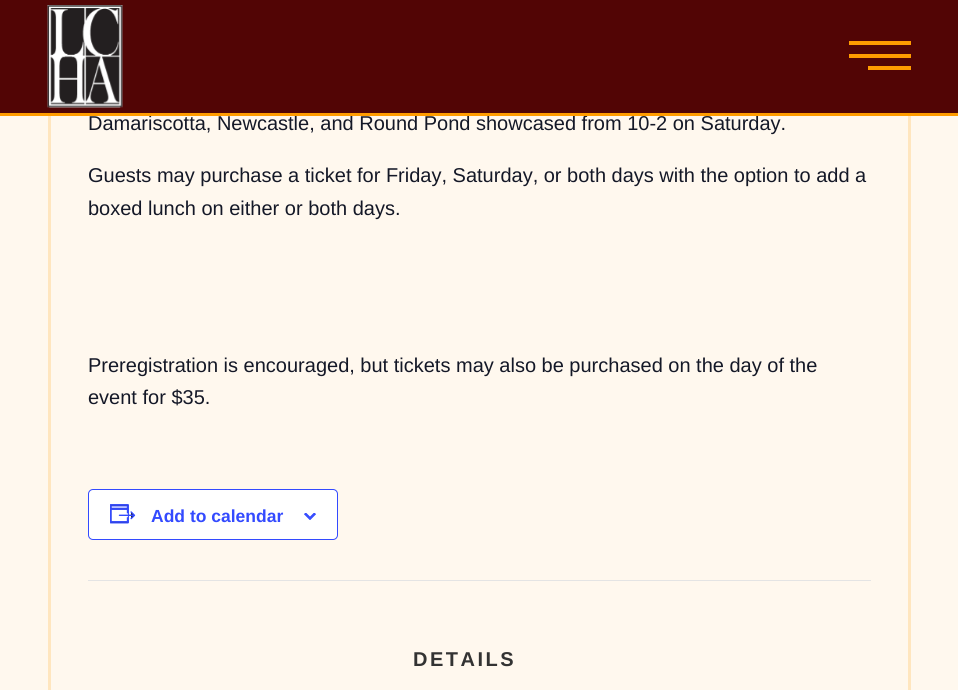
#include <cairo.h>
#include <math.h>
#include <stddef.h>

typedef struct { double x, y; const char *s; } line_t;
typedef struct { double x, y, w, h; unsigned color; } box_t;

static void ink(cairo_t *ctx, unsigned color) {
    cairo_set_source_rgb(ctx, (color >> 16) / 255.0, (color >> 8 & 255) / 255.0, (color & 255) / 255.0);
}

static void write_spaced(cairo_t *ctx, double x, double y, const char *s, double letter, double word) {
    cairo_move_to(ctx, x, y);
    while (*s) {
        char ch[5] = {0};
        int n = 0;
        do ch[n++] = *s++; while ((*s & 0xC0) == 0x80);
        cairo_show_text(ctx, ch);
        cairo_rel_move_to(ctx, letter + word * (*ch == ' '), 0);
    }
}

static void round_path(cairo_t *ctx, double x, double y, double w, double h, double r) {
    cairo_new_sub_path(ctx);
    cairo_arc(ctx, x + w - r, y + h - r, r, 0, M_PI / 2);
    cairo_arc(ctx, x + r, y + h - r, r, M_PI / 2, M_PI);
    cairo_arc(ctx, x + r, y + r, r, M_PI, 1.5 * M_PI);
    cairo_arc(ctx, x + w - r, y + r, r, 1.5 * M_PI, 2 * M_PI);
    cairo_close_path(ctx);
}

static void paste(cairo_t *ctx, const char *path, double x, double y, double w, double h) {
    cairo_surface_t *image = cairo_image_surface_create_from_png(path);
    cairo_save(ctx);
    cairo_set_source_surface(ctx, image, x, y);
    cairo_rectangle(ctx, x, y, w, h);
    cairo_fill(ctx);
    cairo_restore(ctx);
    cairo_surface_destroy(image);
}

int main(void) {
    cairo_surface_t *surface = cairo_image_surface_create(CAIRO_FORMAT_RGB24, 958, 690);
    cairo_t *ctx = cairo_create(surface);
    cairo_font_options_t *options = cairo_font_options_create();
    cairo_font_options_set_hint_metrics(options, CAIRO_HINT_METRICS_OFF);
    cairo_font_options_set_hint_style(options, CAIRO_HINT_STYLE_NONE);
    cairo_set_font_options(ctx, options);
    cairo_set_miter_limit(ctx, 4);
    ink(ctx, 0xFFF8EE);
    cairo_paint(ctx);
    cairo_rectangle(ctx, 49.5, -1.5, 860, 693);
    ink(ctx, 0xFFE6BF);
    cairo_set_line_width(ctx, 3);
    cairo_stroke(ctx);
    ink(ctx, 0x520505);
    cairo_rectangle(ctx, 0, 0, 958, 113);
    cairo_fill(ctx);
    paste(ctx, "media/1.png", 47, 5, 76, 103);
    {
        static const box_t items[] = {
            {849, 41, 62, 4, 0xFF9C00},
            {849, 54, 62, 4, 0xFF9C00},
            {868, 66, 43, 4, 0xFF9C00},
        };
        for (size_t i = 0; i < sizeof items / sizeof *items; i++) {
            ink(ctx, items[i].color);
            cairo_rectangle(ctx, items[i].x, items[i].y, items[i].w, items[i].h);
            cairo_fill(ctx);
        }
    }
    cairo_select_font_face(ctx, "Liberation Sans", CAIRO_FONT_SLANT_NORMAL, CAIRO_FONT_WEIGHT_NORMAL);
    cairo_set_font_size(ctx, 20);
    ink(ctx, 0x141827);
    cairo_move_to(ctx, 88, 130);
    cairo_show_text(ctx, "Damariscotta, Newcastle, and Round Pond showcased from 10-2 on Saturday.");
    ink(ctx, 0xFF9C00);
    cairo_rectangle(ctx, 0, 113, 958, 3);
    cairo_fill(ctx);
    ink(ctx, 0x141827);
    {
        static const line_t items[] = {
            {88, 182, "Guests may purchase a ticket for Friday, Saturday, or both days with the option to add a"},
            {88, 215, "boxed lunch on either or both days."},
            {88, 372, "Preregistration is encouraged, but tickets may also be purchased on the day of the"},
            {88, 404, "event for $35."},
        };
        for (size_t i = 0; i < sizeof items / sizeof *items; i++) {
            cairo_move_to(ctx, items[i].x, items[i].y);
            cairo_show_text(ctx, items[i].s);
        }
    }
    ink(ctx, 0xFFFFFF);
    round_path(ctx, 88.5, 489.5, 249, 50, 4.5);
    cairo_fill_preserve(ctx);
    ink(ctx, 0x334AFF);
    cairo_set_line_width(ctx, 1);
    cairo_stroke(ctx);
    paste(ctx, "media/2.png", 110, 504, 26, 20);
    cairo_select_font_face(ctx, "Liberation Sans", CAIRO_FONT_SLANT_NORMAL, CAIRO_FONT_WEIGHT_BOLD);
    cairo_set_font_size(ctx, 17.5);
    cairo_move_to(ctx, 151, 522);
    cairo_show_text(ctx, "Add to calendar");
    paste(ctx, "media/3.png", 304, 513, 12, 7);
    ink(ctx, 0xE4E4E4);
    cairo_rectangle(ctx, 88, 580, 783, 1);
    cairo_fill(ctx);
    cairo_set_font_size(ctx, 20);
    ink(ctx, 0x333333);
    write_spaced(ctx, 413, 666, "DETAILS", 2.5, 0);
    cairo_surface_write_to_png(surface, "image.png");
    cairo_font_options_destroy(options);
    cairo_destroy(ctx);
    cairo_surface_destroy(surface);
    return 0;
}
